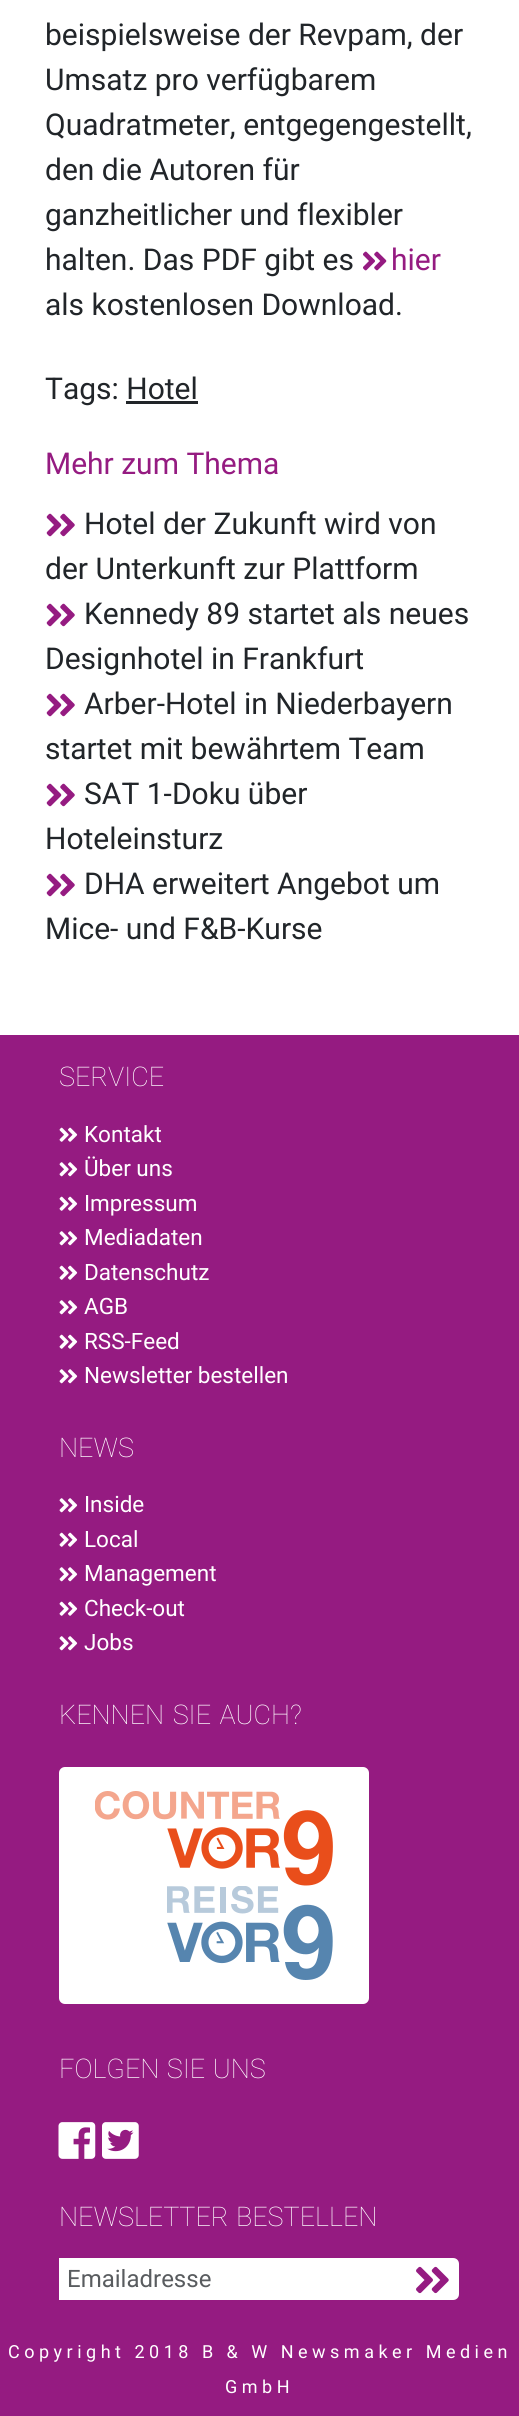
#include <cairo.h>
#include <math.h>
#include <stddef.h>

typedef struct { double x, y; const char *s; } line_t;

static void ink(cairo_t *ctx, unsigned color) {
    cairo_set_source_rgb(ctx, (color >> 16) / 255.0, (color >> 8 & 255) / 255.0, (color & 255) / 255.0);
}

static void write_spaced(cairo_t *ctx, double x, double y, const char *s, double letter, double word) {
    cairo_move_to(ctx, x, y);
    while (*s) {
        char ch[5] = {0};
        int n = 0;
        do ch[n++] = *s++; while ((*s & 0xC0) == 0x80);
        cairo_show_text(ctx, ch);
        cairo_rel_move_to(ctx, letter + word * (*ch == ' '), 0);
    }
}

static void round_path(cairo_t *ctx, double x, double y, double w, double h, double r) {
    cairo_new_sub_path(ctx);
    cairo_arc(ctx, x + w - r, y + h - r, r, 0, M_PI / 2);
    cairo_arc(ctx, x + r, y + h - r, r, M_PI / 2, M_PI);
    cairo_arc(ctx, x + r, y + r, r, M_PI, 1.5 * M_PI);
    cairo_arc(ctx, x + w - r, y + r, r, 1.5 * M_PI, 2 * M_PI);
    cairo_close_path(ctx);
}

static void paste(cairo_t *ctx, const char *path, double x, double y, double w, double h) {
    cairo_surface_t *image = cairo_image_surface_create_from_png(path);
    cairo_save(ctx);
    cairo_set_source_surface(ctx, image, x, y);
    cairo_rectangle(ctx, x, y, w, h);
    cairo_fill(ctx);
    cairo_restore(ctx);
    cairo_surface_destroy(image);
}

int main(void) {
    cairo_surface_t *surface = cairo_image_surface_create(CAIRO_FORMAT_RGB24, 519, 2416);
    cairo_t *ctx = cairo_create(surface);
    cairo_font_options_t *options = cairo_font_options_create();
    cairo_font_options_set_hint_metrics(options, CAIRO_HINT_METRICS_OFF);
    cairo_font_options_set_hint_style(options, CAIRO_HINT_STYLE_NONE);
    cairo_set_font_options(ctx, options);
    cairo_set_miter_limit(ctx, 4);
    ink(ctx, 0xFFFFFF);
    cairo_paint(ctx);
    cairo_select_font_face(ctx, "Roboto", CAIRO_FONT_SLANT_NORMAL, CAIRO_FONT_WEIGHT_NORMAL);
    cairo_set_font_size(ctx, 30);
    ink(ctx, 0x212529);
    {
        static const line_t items[] = {
            {45, 45, "beispielsweise der Revpam, der"},
            {45, 90, "Umsatz pro verfügbarem"},
            {45, 135, "Quadratmeter, entgegengestellt,"},
            {45, 180, "den die Autoren für"},
            {45, 225, "ganzheitlicher und flexibler"},
            {45, 270, "halten. Das PDF gibt es"},
        };
        for (size_t i = 0; i < sizeof items / sizeof *items; i++) {
            cairo_move_to(ctx, items[i].x, items[i].y);
            cairo_show_text(ctx, items[i].s);
        }
    }
    paste(ctx, "media/1.png", 363, 251, 24, 20);
    ink(ctx, 0x951B81);
    cairo_move_to(ctx, 391, 270);
    cairo_show_text(ctx, "hier");
    ink(ctx, 0x212529);
    cairo_move_to(ctx, 45, 315);
    cairo_show_text(ctx, "als kostenlosen Download.");
    cairo_move_to(ctx, 45, 399);
    cairo_show_text(ctx, "Tags: Hotel");
    cairo_rectangle(ctx, 126, 401, 72, 3);
    cairo_fill(ctx);
    ink(ctx, 0x951B81);
    cairo_move_to(ctx, 45, 474);
    cairo_show_text(ctx, "Mehr zum Thema");
    paste(ctx, "media/2.png", 46, 513, 29, 24);
    ink(ctx, 0x212529);
    cairo_move_to(ctx, 84, 534);
    cairo_show_text(ctx, "Hotel der Zukunft wird von");
    cairo_move_to(ctx, 45, 579);
    cairo_show_text(ctx, "der Unterkunft zur Plattform");
    paste(ctx, "media/2.png", 46, 603, 29, 24);
    cairo_move_to(ctx, 84, 624);
    cairo_show_text(ctx, "Kennedy 89 startet als neues");
    cairo_move_to(ctx, 45, 669);
    cairo_show_text(ctx, "Designhotel in Frankfurt");
    paste(ctx, "media/2.png", 46, 693, 29, 24);
    cairo_move_to(ctx, 84, 714);
    cairo_show_text(ctx, "Arber-Hotel in Niederbayern");
    cairo_move_to(ctx, 45, 759);
    cairo_show_text(ctx, "startet mit bewährtem Team");
    paste(ctx, "media/2.png", 46, 783, 29, 24);
    cairo_move_to(ctx, 84, 804);
    cairo_show_text(ctx, "SAT 1-Doku über");
    cairo_move_to(ctx, 45, 849);
    cairo_show_text(ctx, "Hoteleinsturz");
    paste(ctx, "media/2.png", 46, 873, 29, 24);
    cairo_move_to(ctx, 84, 894);
    cairo_show_text(ctx, "DHA erweitert Angebot um");
    cairo_move_to(ctx, 45, 939);
    cairo_show_text(ctx, "Mice- und F&B-Kurse");
    ink(ctx, 0x951B81);
    cairo_rectangle(ctx, 0, 1035, 519, 1381);
    cairo_fill(ctx);
    cairo_select_font_face(ctx, "Roboto Thin", CAIRO_FONT_SLANT_NORMAL, CAIRO_FONT_WEIGHT_NORMAL);
    cairo_set_font_size(ctx, 27);
    ink(ctx, 0xFFFFFF);
    cairo_move_to(ctx, 59, 1086);
    cairo_show_text(ctx, "SERVICE");
    paste(ctx, "media/3.png", 59, 1127, 19, 15);
    cairo_select_font_face(ctx, "Roboto", CAIRO_FONT_SLANT_NORMAL, CAIRO_FONT_WEIGHT_NORMAL);
    cairo_set_font_size(ctx, 22.5);
    cairo_move_to(ctx, 84, 1142);
    cairo_show_text(ctx, "Kontakt");
    paste(ctx, "media/4.png", 59, 1162, 19, 15);
    cairo_move_to(ctx, 84, 1176);
    cairo_show_text(ctx, "Über uns");
    paste(ctx, "media/3.png", 59, 1196, 19, 15);
    cairo_move_to(ctx, 84, 1211);
    cairo_show_text(ctx, "Impressum");
    paste(ctx, "media/4.png", 59, 1231, 19, 15);
    cairo_move_to(ctx, 84, 1245);
    cairo_show_text(ctx, "Mediadaten");
    paste(ctx, "media/3.png", 59, 1265, 19, 15);
    cairo_move_to(ctx, 84, 1280);
    cairo_show_text(ctx, "Datenschutz");
    paste(ctx, "media/4.png", 59, 1300, 19, 15);
    cairo_move_to(ctx, 84, 1314);
    cairo_show_text(ctx, "AGB");
    paste(ctx, "media/3.png", 59, 1334, 19, 15);
    cairo_move_to(ctx, 84, 1349);
    cairo_show_text(ctx, "RSS-Feed");
    paste(ctx, "media/4.png", 59, 1369, 19, 15);
    cairo_move_to(ctx, 84, 1383);
    cairo_show_text(ctx, "Newsletter bestellen");
    cairo_select_font_face(ctx, "Roboto Thin", CAIRO_FONT_SLANT_NORMAL, CAIRO_FONT_WEIGHT_NORMAL);
    cairo_set_font_size(ctx, 27);
    cairo_move_to(ctx, 59, 1457);
    cairo_show_text(ctx, "NEWS");
    paste(ctx, "media/4.png", 59, 1498, 19, 15);
    cairo_select_font_face(ctx, "Roboto", CAIRO_FONT_SLANT_NORMAL, CAIRO_FONT_WEIGHT_NORMAL);
    cairo_set_font_size(ctx, 22.5);
    cairo_move_to(ctx, 84, 1512);
    cairo_show_text(ctx, "Inside");
    paste(ctx, "media/3.png", 59, 1532, 19, 15);
    cairo_move_to(ctx, 84, 1547);
    cairo_show_text(ctx, "Local");
    paste(ctx, "media/4.png", 59, 1567, 19, 15);
    cairo_move_to(ctx, 84, 1581);
    cairo_show_text(ctx, "Management");
    paste(ctx, "media/3.png", 59, 1601, 19, 15);
    cairo_move_to(ctx, 84, 1616);
    cairo_show_text(ctx, "Check-out");
    paste(ctx, "media/4.png", 59, 1636, 19, 15);
    cairo_move_to(ctx, 84, 1650);
    cairo_show_text(ctx, "Jobs");
    cairo_select_font_face(ctx, "Roboto Thin", CAIRO_FONT_SLANT_NORMAL, CAIRO_FONT_WEIGHT_NORMAL);
    cairo_set_font_size(ctx, 27);
    write_spaced(ctx, 59, 1724, "KENNEN SIE AUCH?", 0, 2);
    round_path(ctx, 59, 1767, 310, 237, 6);
    cairo_fill(ctx);
    paste(ctx, "media/5.png", 95, 1791, 238, 95);
    paste(ctx, "media/6.png", 167, 1886, 166, 94);
    write_spaced(ctx, 59, 2078, "FOLGEN SIE UNS", 0, 1);
    paste(ctx, "media/7.png", 58, 2122, 38, 37);
    paste(ctx, "media/8.png", 102, 2122, 37, 37);
    write_spaced(ctx, 59, 2226, "NEWSLETTER BESTELLEN", 0, 1);
    cairo_new_path(ctx);
    cairo_move_to(ctx, 405, 2258);
    cairo_line_to(ctx, 453, 2258);
    cairo_curve_to(ctx, 456.5, 2258, 459, 2260.5, 459, 2264);
    cairo_line_to(ctx, 459, 2294);
    cairo_curve_to(ctx, 459, 2297.5, 456.5, 2300, 453, 2300);
    cairo_line_to(ctx, 405, 2300);
    cairo_close_path(ctx);
    cairo_fill(ctx);
    cairo_rectangle(ctx, 60, 2259, 346, 40);
    cairo_fill_preserve(ctx);
    cairo_stroke(ctx);
    cairo_select_font_face(ctx, "Roboto", CAIRO_FONT_SLANT_NORMAL, CAIRO_FONT_WEIGHT_NORMAL);
    cairo_set_font_size(ctx, 24);
    ink(ctx, 0x595C5F);
    cairo_move_to(ctx, 67, 2287);
    cairo_show_text(ctx, "Emailadresse");
    paste(ctx, "media/9.png", 416, 2266, 33, 28);
    cairo_set_font_size(ctx, 18);
    ink(ctx, 0xFFFFFF);
    write_spaced(ctx, 8, 2358, "Copyright 2018 B & W Newsmaker Medien", 4.5, 0);
    write_spaced(ctx, 225, 2393, "GmbH", 4.5, 0);
    cairo_surface_write_to_png(surface, "image.png");
    cairo_font_options_destroy(options);
    cairo_destroy(ctx);
    cairo_surface_destroy(surface);
    return 0;
}
